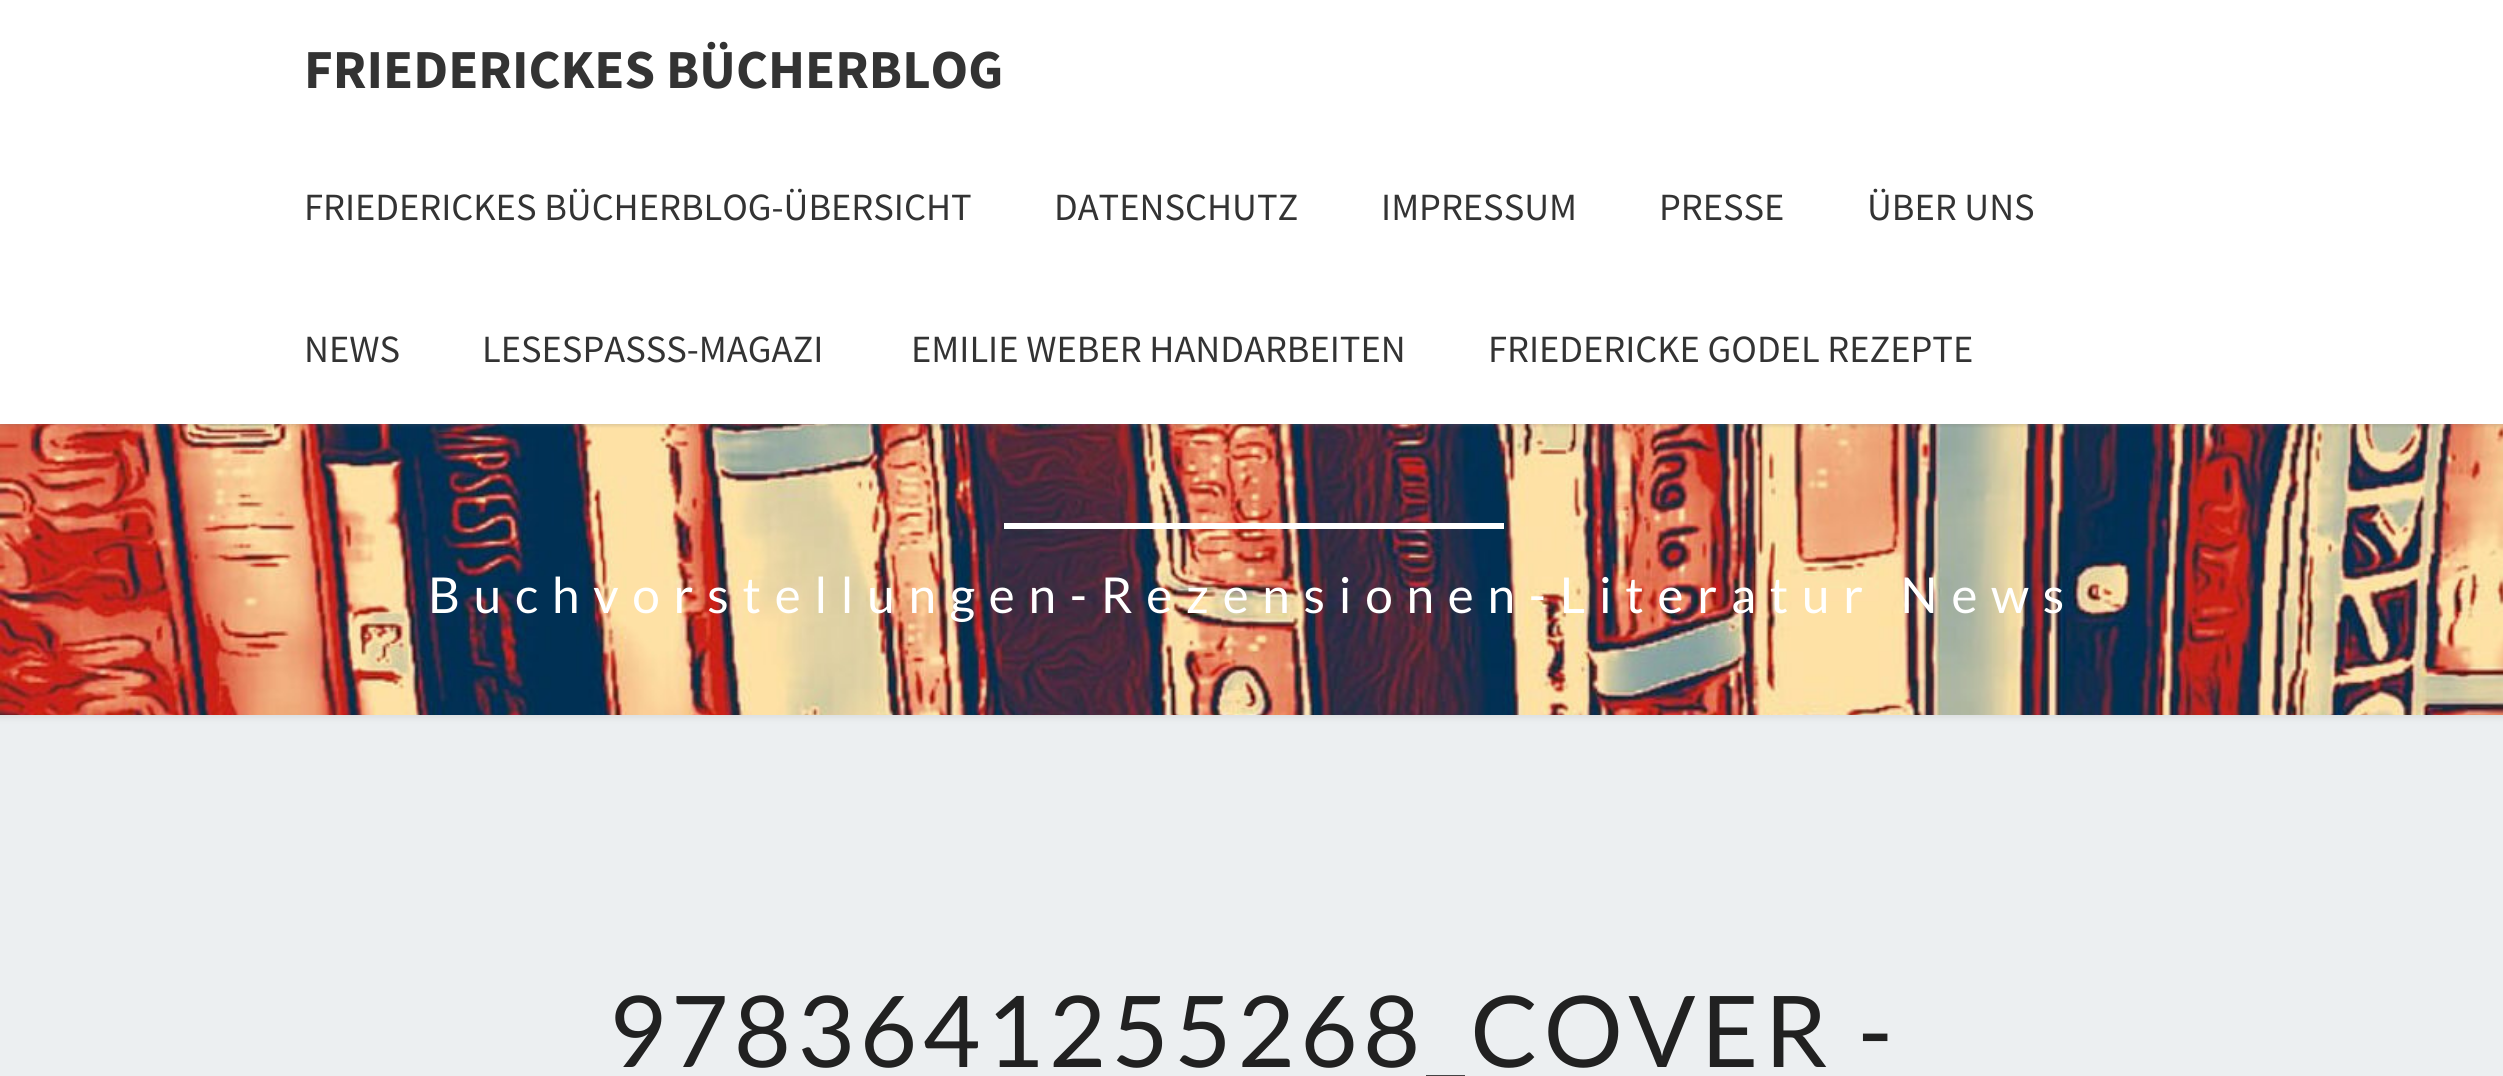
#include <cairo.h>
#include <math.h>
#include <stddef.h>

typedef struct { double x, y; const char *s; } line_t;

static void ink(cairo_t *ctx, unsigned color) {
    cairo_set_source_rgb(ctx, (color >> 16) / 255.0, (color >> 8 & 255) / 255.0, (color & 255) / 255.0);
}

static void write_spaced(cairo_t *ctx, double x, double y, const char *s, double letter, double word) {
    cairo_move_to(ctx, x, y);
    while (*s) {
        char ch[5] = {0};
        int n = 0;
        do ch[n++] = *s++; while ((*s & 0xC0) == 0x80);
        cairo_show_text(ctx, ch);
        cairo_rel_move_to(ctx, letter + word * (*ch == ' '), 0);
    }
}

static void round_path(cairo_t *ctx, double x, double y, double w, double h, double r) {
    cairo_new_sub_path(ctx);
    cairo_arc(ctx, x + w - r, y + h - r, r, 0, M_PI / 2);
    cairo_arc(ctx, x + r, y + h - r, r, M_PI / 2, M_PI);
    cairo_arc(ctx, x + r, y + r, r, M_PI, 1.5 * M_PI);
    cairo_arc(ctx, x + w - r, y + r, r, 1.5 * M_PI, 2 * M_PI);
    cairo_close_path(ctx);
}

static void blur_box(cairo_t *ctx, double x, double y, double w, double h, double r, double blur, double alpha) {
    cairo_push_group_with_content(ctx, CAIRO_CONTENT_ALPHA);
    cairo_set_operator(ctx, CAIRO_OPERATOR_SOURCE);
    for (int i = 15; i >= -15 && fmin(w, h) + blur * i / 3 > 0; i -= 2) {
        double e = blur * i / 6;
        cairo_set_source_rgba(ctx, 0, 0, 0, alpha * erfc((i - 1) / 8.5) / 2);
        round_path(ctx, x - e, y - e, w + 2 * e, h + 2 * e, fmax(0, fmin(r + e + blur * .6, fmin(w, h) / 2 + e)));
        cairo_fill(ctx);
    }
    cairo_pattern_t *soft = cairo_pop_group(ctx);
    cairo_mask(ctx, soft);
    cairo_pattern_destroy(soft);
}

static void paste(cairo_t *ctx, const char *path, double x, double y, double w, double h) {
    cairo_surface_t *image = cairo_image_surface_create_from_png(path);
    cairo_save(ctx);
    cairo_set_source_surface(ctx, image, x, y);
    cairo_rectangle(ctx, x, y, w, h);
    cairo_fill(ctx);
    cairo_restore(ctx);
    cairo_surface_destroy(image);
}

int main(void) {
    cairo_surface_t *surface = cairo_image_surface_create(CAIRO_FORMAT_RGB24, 2503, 1076);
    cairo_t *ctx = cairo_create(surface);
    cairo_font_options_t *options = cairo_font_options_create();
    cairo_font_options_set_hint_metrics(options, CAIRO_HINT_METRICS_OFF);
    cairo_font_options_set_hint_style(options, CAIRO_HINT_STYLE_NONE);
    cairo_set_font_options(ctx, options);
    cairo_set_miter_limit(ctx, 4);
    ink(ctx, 0xECEFF1);
    cairo_paint(ctx);
    ink(ctx, 0xB6B6B6);
    blur_box(ctx, -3, -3, 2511, 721, 0, 3, 0.3);
    paste(ctx, "media/1.png", 0, 424, 2503, 291);
    ink(ctx, 0x646464);
    blur_box(ctx, 0, 3, 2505, 423, 0, 1.5, 0.2);
    ink(ctx, 0xFFFFFF);
    cairo_rectangle(ctx, 0, 0, 2503, 424);
    cairo_fill(ctx);
    cairo_select_font_face(ctx, "Source Sans Pro", CAIRO_FONT_SLANT_NORMAL, CAIRO_FONT_WEIGHT_BOLD);
    cairo_set_font_size(ctx, 55);
    ink(ctx, 0x333333);
    cairo_move_to(ctx, 304, 88);
    cairo_show_text(ctx, "FRIEDERICKES BÜCHERBLOG");
    cairo_select_font_face(ctx, "Source Sans Pro", CAIRO_FONT_SLANT_NORMAL, CAIRO_FONT_WEIGHT_NORMAL);
    cairo_set_font_size(ctx, 38.5);
    {
        static const line_t items[] = {
            {304, 220, "FRIEDERICKES BÜCHERBLOG-ÜBERSICHT"},
            {1054, 220, "DATENSCHUTZ"},
            {1381, 220, "IMPRESSUM"},
            {1659, 220, "PRESSE"},
            {1867, 220, "ÜBER UNS"},
            {304, 362, "NEWS"},
            {482, 362, "LESESPASSS-MAGAZI"},
            {911, 362, "EMILIE WEBER HANDARBEITEN"},
            {1488, 362, "FRIEDERICKE GODEL REZEPTE"},
        };
        for (size_t i = 0; i < sizeof items / sizeof *items; i++) {
            cairo_move_to(ctx, items[i].x, items[i].y);
            cairo_show_text(ctx, items[i].s);
        }
    }
    ink(ctx, 0xFFFFFF);
    cairo_rectangle(ctx, 1004, 523, 500, 6);
    cairo_fill(ctx);
    cairo_select_font_face(ctx, "Lato", CAIRO_FONT_SLANT_NORMAL, CAIRO_FONT_WEIGHT_NORMAL);
    cairo_set_font_size(ctx, 49.5);
    write_spaced(ctx, 428, 613, "Buchvorstellungen-Rezensionen-Literatur News", 13.75, 0);
    cairo_set_font_size(ctx, 99);
    ink(ctx, 0x212121);
    write_spaced(ctx, 608, 1067, "9783641255268_COVER -", 5.5, 0);
    cairo_surface_write_to_png(surface, "image.png");
    cairo_font_options_destroy(options);
    cairo_destroy(ctx);
    cairo_surface_destroy(surface);
    return 0;
}
